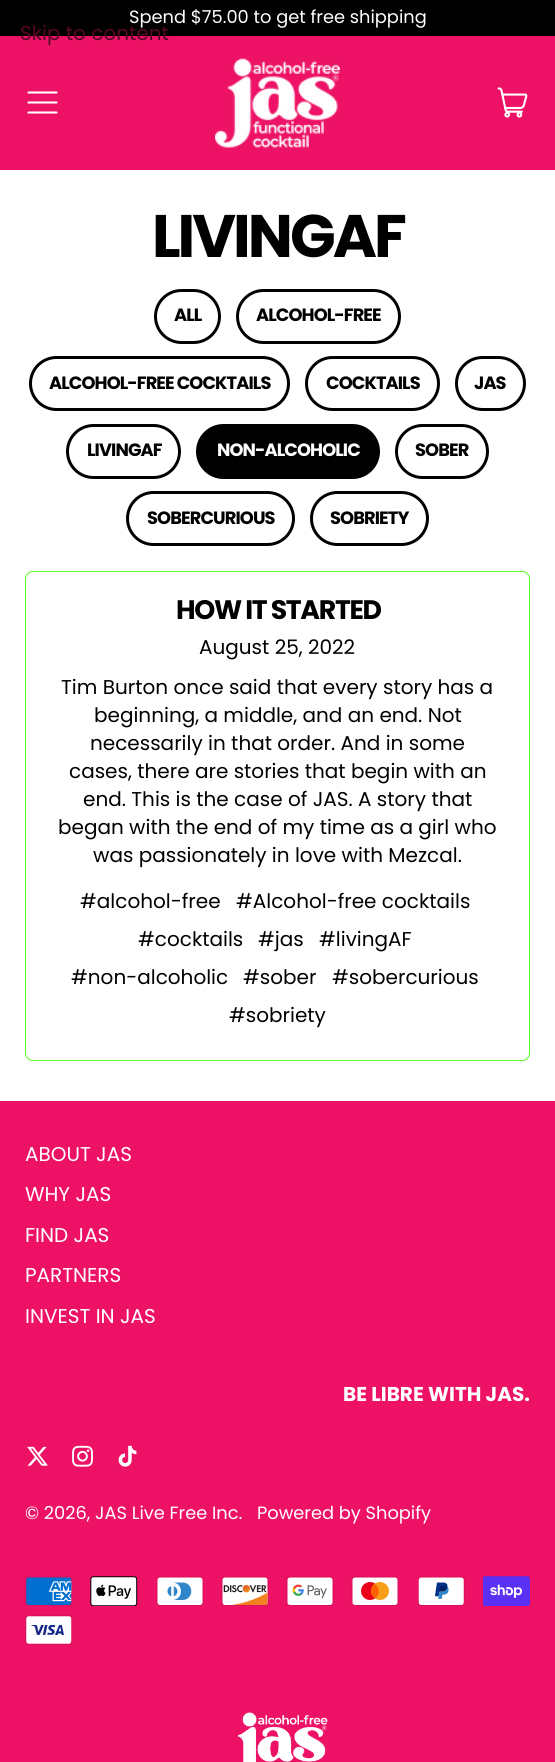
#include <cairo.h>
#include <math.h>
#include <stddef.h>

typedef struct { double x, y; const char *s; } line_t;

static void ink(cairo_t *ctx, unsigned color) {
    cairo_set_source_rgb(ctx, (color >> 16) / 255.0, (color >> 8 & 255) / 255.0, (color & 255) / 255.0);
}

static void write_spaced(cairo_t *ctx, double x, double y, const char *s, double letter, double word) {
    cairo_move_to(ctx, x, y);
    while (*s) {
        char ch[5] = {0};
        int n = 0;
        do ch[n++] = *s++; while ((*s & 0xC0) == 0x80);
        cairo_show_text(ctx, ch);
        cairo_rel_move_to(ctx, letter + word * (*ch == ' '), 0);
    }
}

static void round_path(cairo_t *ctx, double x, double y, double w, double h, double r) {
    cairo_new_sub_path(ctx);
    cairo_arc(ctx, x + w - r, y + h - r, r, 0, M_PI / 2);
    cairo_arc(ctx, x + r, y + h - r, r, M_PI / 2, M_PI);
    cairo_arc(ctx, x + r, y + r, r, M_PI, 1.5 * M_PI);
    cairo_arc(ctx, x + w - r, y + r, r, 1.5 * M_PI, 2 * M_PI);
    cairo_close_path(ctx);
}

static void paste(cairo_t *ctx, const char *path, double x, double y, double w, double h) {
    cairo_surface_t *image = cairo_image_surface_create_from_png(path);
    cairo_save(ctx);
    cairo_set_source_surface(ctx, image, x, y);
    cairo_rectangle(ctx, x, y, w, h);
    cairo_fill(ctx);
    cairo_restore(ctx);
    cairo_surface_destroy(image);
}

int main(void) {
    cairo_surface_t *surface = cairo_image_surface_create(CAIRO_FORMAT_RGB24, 555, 1762);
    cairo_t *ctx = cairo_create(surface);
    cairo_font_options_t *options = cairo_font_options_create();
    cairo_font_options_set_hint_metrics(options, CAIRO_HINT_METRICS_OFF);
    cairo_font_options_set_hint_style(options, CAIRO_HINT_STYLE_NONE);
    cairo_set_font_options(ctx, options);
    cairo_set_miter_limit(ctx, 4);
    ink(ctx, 0xFFFFFF);
    cairo_paint(ctx);
    ink(ctx, 0x000000);
    cairo_rectangle(ctx, 0, 0, 555, 36);
    cairo_fill(ctx);
    cairo_select_font_face(ctx, "Poppins", CAIRO_FONT_SLANT_NORMAL, CAIRO_FONT_WEIGHT_NORMAL);
    cairo_set_font_size(ctx, 17.8);
    ink(ctx, 0xFFFFFF);
    cairo_move_to(ctx, 129, 23);
    cairo_show_text(ctx, "Spend $75.00 to get free shipping");
    ink(ctx, 0xED1265);
    cairo_rectangle(ctx, 0, 36, 555, 134);
    cairo_fill(ctx);
    cairo_set_font_size(ctx, 20);
    ink(ctx, 0x550624);
    cairo_move_to(ctx, 20, 40);
    cairo_show_text(ctx, "Skip to content");
    cairo_new_path(ctx);
    cairo_move_to(ctx, 56.5, 112.5);
    cairo_line_to(ctx, 28.5, 112.5);
    cairo_move_to(ctx, 56.5, 102.5);
    cairo_line_to(ctx, 28.5, 102.5);
    cairo_move_to(ctx, 56.5, 92.5);
    cairo_line_to(ctx, 28.5, 92.5);
    ink(ctx, 0xFFFFFF);
    cairo_set_line_width(ctx, 2.1);
    cairo_set_line_cap(ctx, CAIRO_LINE_CAP_ROUND);
    cairo_set_line_join(ctx, CAIRO_LINE_JOIN_ROUND);
    cairo_stroke(ctx);
    paste(ctx, "media/1.png", 215, 58, 125, 90);
    paste(ctx, "media/2.png", 497, 87, 31, 31);
    cairo_select_font_face(ctx, "Poppins", CAIRO_FONT_SLANT_NORMAL, CAIRO_FONT_WEIGHT_BOLD);
    cairo_set_font_size(ctx, 60);
    ink(ctx, 0x000000);
    write_spaced(ctx, 152, 257, "LIVINGAF", -3, 0);
    round_path(ctx, 155.5, 290.5, 64, 52, 26);
    cairo_set_line_width(ctx, 3);
    cairo_set_line_cap(ctx, CAIRO_LINE_CAP_BUTT);
    cairo_set_line_join(ctx, CAIRO_LINE_JOIN_MITER);
    cairo_stroke(ctx);
    cairo_set_font_size(ctx, 17.8);
    write_spaced(ctx, 174, 321, "ALL", -0.9, 0);
    round_path(ctx, 237.5, 290.5, 162, 52, 26);
    cairo_stroke(ctx);
    write_spaced(ctx, 256, 321, "ALCOHOL-FREE", -0.9, 0);
    round_path(ctx, 30.5, 357.5, 258, 52, 26);
    cairo_stroke(ctx);
    write_spaced(ctx, 49, 389, "ALCOHOL-FREE COCKTAILS", -0.9, 0);
    round_path(ctx, 306.5, 357.5, 132, 52, 26);
    cairo_stroke(ctx);
    write_spaced(ctx, 326, 389, "COCKTAILS", -0.9, 0);
    round_path(ctx, 456.5, 357.5, 68, 52, 26);
    cairo_stroke(ctx);
    write_spaced(ctx, 474, 389, "JAS", -0.9, 0);
    round_path(ctx, 67.5, 425.5, 112, 52, 26);
    cairo_stroke(ctx);
    write_spaced(ctx, 87, 456, "LIVINGAF", -0.9, 0);
    round_path(ctx, 197.5, 425.5, 181, 52, 26);
    cairo_fill_preserve(ctx);
    cairo_stroke(ctx);
    ink(ctx, 0xFFFFFF);
    write_spaced(ctx, 217, 456, "NON-ALCOHOLIC", -0.9, 0);
    round_path(ctx, 396.5, 425.5, 91, 52, 26);
    ink(ctx, 0x000000);
    cairo_stroke(ctx);
    write_spaced(ctx, 415, 456, "SOBER", -0.9, 0);
    round_path(ctx, 127.5, 492.5, 166, 52, 26);
    cairo_stroke(ctx);
    write_spaced(ctx, 147, 524, "SOBERCURIOUS", -0.9, 0);
    round_path(ctx, 311.5, 492.5, 116, 52, 26);
    cairo_stroke(ctx);
    write_spaced(ctx, 330, 524, "SOBRIETY", -0.9, 0);
    round_path(ctx, 25.5, 571.5, 504, 489, 7.5);
    ink(ctx, 0x5AFF24);
    cairo_set_line_width(ctx, 1);
    cairo_stroke(ctx);
    cairo_set_font_size(ctx, 26.75);
    ink(ctx, 0x000000);
    write_spaced(ctx, 176, 619, "HOW IT STARTED", -1.3, 0);
    cairo_select_font_face(ctx, "Poppins", CAIRO_FONT_SLANT_NORMAL, CAIRO_FONT_WEIGHT_NORMAL);
    cairo_set_font_size(ctx, 20);
    {
        static const line_t items[] = {
            {199, 654, "August 25, 2022"},
            {61, 694, "Tim Burton once said that every story has a"},
            {94, 722, "beginning, a middle, and an end. Not"},
            {90, 750, "necessarily in that order. And in some"},
            {69, 778, "cases, there are stories that begin with an"},
            {83, 806, "end. This is the case of JAS. A story that"},
            {58, 834, "began with the end of my time as a girl who"},
            {93, 862, "was passionately in love with Mezcal."},
            {80, 908, "#alcohol-free"},
            {236, 908, "#Alcohol-free cocktails"},
            {138, 946, "#cocktails"},
            {258, 946, "#jas"},
            {319, 946, "#livingAF"},
            {71, 984, "#non-alcoholic"},
            {243, 984, "#sober"},
            {332, 984, "#sobercurious"},
            {229, 1022, "#sobriety"},
        };
        for (size_t i = 0; i < sizeof items / sizeof *items; i++) {
            cairo_move_to(ctx, items[i].x, items[i].y);
            cairo_show_text(ctx, items[i].s);
        }
    }
    ink(ctx, 0xED1265);
    cairo_rectangle(ctx, 0, 1101, 555, 661);
    cairo_fill(ctx);
    ink(ctx, 0xFFFFFF);
    {
        static const line_t items[] = {
            {25, 1161, "ABOUT JAS"},
            {25, 1201, "WHY JAS"},
            {25, 1242, "FIND JAS"},
            {25, 1282, "PARTNERS"},
            {25, 1323, "INVEST IN JAS"},
        };
        for (size_t i = 0; i < sizeof items / sizeof *items; i++) {
            cairo_move_to(ctx, items[i].x, items[i].y);
            cairo_show_text(ctx, items[i].s);
        }
    }
    cairo_select_font_face(ctx, "Poppins", CAIRO_FONT_SLANT_NORMAL, CAIRO_FONT_WEIGHT_BOLD);
    cairo_move_to(ctx, 343, 1401);
    cairo_show_text(ctx, "BE LIBRE WITH JAS.");
    paste(ctx, "media/3.png", 27, 1446, 21, 20);
    paste(ctx, "media/4.png", 72, 1445, 21, 22);
    paste(ctx, "media/5.png", 118, 1445, 19, 22);
    cairo_select_font_face(ctx, "Poppins", CAIRO_FONT_SLANT_NORMAL, CAIRO_FONT_WEIGHT_NORMAL);
    cairo_set_font_size(ctx, 17.8);
    cairo_move_to(ctx, 25, 1519);
    cairo_show_text(ctx, "© 2026, JAS Live Free Inc.");
    cairo_move_to(ctx, 257, 1519);
    cairo_show_text(ctx, "Powered by Shopify");
    paste(ctx, "media/6.png", 25, 1576, 48, 30);
    paste(ctx, "media/7.png", 90, 1576, 48, 30);
    paste(ctx, "media/8.png", 156, 1576, 48, 30);
    paste(ctx, "media/9.png", 221, 1576, 48, 30);
    paste(ctx, "media/10.png", 286, 1576, 48, 30);
    paste(ctx, "media/11.png", 351, 1576, 48, 30);
    paste(ctx, "media/12.png", 418, 1576, 47, 30);
    paste(ctx, "media/13.png", 483, 1576, 47, 30);
    paste(ctx, "media/14.png", 25, 1615, 48, 30);
    paste(ctx, "media/15.png", 237, 1712, 91, 50);
    cairo_surface_write_to_png(surface, "image.png");
    cairo_font_options_destroy(options);
    cairo_destroy(ctx);
    cairo_surface_destroy(surface);
    return 0;
}
